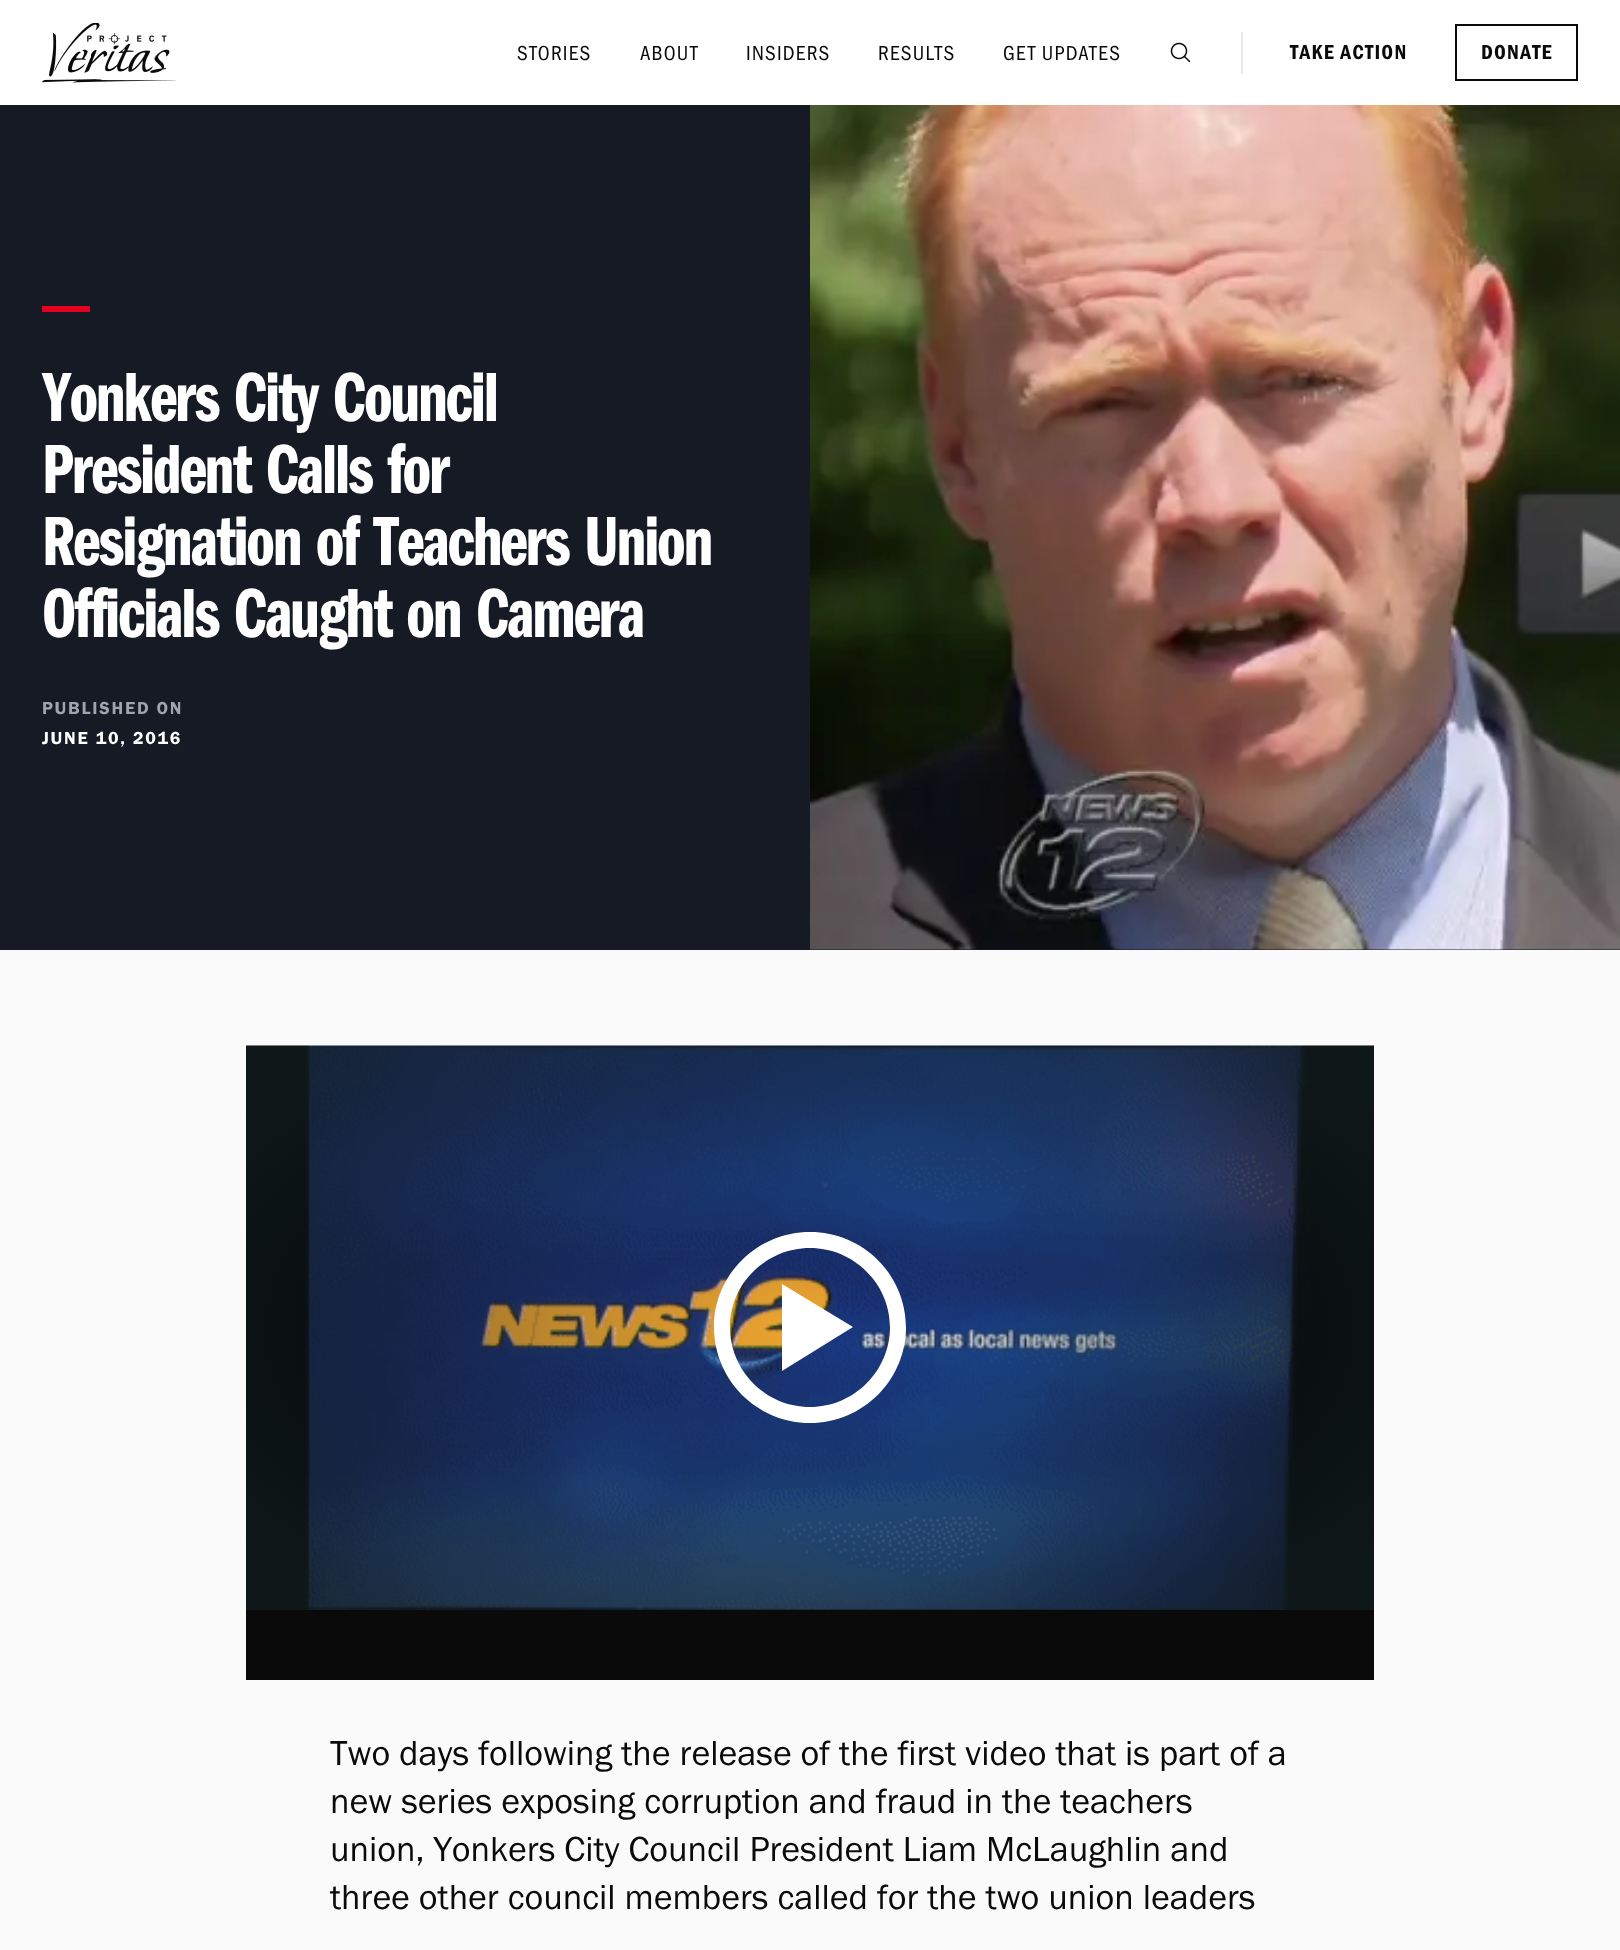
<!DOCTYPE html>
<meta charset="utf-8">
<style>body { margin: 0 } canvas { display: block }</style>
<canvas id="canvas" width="1620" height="1950"></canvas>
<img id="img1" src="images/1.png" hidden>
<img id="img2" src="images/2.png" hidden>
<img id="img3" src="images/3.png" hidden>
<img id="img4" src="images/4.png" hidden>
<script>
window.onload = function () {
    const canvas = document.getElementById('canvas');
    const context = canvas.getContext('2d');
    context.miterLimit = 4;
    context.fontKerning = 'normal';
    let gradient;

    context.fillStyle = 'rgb(250, 250, 250)';
    context.fillRect(0, 0, 1620, 1950);
    context.fillStyle = 'rgb(255, 255, 255)';
    context.fillRect(0, 0, 1620, 105);
    context.drawImage(document.getElementById('img1'), 42, 23, 135, 60);
    context.drawImage(document.getElementById('img2'), 1170, 42, 21, 21);
    context.fillStyle = 'rgb(230, 233, 236)';
    context.fillRect(1241, 32, 2, 42);
    context.strokeStyle = 'rgb(10, 10, 10)';
    context.lineWidth = 2;
    context.strokeRect(1456, 25, 121, 55);
    context.fillStyle = 'rgb(21, 26, 36)';
    context.fillRect(0, 105, 1620, 845);
    context.fillStyle = 'rgb(229, 0, 31)';
    context.fillRect(42, 306, 48, 6);
    context.drawImage(document.getElementById('img3'), 810, 105, 810, 845);
    context.fillStyle = 'rgb(10, 10, 10)';
    context.fillRect(246, 1609, 1128, 71);
    context.drawImage(document.getElementById('img4'), 246, 1045, 1128, 565);
    gradient = context.createRadialGradient(810, 2656, 0, 810, 2656, 716);
    gradient.addColorStop(0, 'rgba(22, 35, 37, 0)');
    gradient.addColorStop(1, 'rgba(22, 35, 37, 0.66)');
    context.fillStyle = gradient;
    context.beginPath();
    context.rect(246, 1046, 1128, 564);
    context.save();
    context.clip();
    context.scale(1, 358 / 716);
    context.fillRect(0, 0, 1620, 3900);
    context.restore();
    context.fillStyle = 'rgb(255, 255, 255)';
    context.beginPath();
    context.moveTo(730, 1327);
    context.bezierCurveTo(730, 1371, 766, 1407, 810, 1407);
    context.bezierCurveTo(854, 1407, 890, 1371, 890, 1327);
    context.bezierCurveTo(890, 1284, 854, 1248, 810, 1248);
    context.bezierCurveTo(766, 1248, 730, 1284, 730, 1327);
    context.closePath();
    context.moveTo(714, 1327);
    context.bezierCurveTo(714, 1275, 757, 1232, 810, 1232);
    context.bezierCurveTo(863, 1232, 906, 1275, 906, 1327);
    context.bezierCurveTo(906, 1380, 863, 1423, 810, 1423);
    context.bezierCurveTo(757, 1423, 714, 1380, 714, 1327);
    context.closePath();
    context.moveTo(853, 1327);
    context.lineTo(782, 1371);
    context.lineTo(782, 1284);
    context.closePath();
    context.fill('evenodd');
    context.letterSpacing = '1.25px';
    context.font = '21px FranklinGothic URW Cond';
    context.fillStyle = 'rgb(10, 10, 10)';
    context.fillText('STORIES', 517, 60);
    context.fillText('ABOUT', 640, 60);
    context.fillText('INSIDERS', 746, 60);
    context.fillText('RESULTS', 878, 60);
    context.fillText('GET UPDATES', 1003, 60);
    context.font = '21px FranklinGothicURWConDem';
    context.fillText('TAKE ACTION', 1290, 59);
    context.fillText('DONATE', 1481, 59);
    context.letterSpacing = '-1.8px';
    context.font = '600 72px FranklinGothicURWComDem';
    context.fillStyle = 'rgb(255, 255, 255)';
    context.fillText('Yonkers City Council', 42, 421);
    context.fillText('President Calls for', 42, 493);
    context.fillText('Resignation of Teachers Union', 42, 565);
    context.fillText('Officials Caught on Camera', 42, 637);
    context.letterSpacing = '1.75px';
    context.font = '18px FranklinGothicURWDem';
    context.fillStyle = 'rgb(157, 165, 175)';
    context.fillText('PUBLISHED ON', 42, 714);
    context.fillStyle = 'rgb(255, 255, 255)';
    context.fillText('JUNE 10, 2016', 42, 744);
    context.letterSpacing = '0px';
    context.font = '36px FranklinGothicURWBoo';
    context.fillStyle = 'rgb(10, 10, 10)';
    context.fillText('Two days following the release of the first video that is part of a', 330, 1765);
    context.fillText('new series exposing corruption and fraud in the teachers', 330, 1813);
    context.fillText('union, Yonkers City Council President Liam McLaughlin and', 330, 1861);
    context.fillText('three other council members called for the two union leaders', 330, 1909);
};
</script>
